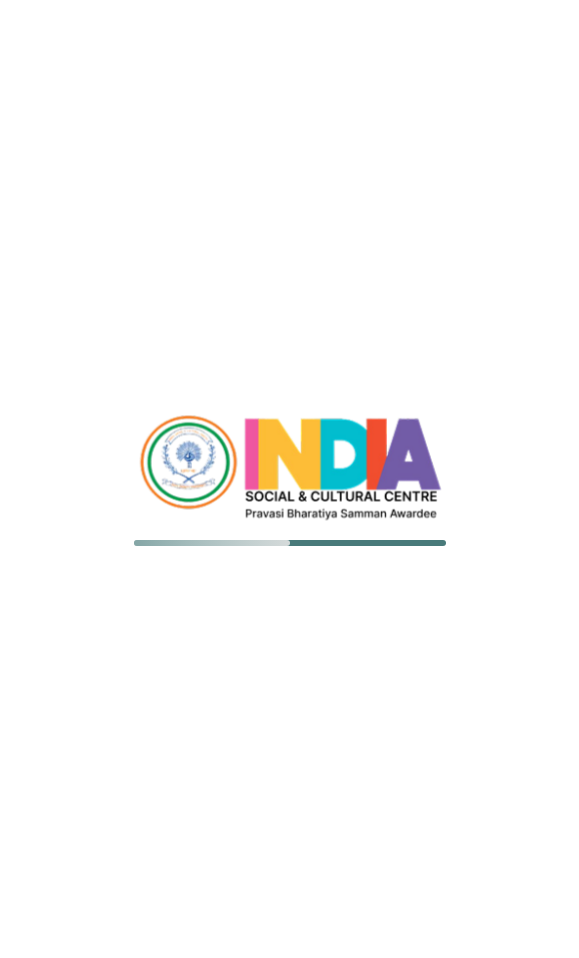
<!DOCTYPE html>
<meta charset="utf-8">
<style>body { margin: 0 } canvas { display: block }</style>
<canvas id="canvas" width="579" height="958"></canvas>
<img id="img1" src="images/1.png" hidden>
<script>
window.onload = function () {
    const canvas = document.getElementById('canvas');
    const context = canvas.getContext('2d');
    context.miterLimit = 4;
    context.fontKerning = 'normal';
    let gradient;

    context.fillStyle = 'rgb(255, 255, 255)';
    context.fillRect(0, 0, 579, 958);
    context.drawImage(document.getElementById('img1'), 139, 415, 303, 106);
    context.fillStyle = 'rgb(72, 122, 122)';
    context.beginPath();
    context.roundRect(134, 540, 312, 6, 3);
    context.fill();
    gradient = context.createLinearGradient(134, 543, 290, 543);
    gradient.addColorStop(0, 'rgba(255, 255, 255, 0.33)');
    gradient.addColorStop(1, 'rgba(230, 230, 230, 0.89)');
    context.fillStyle = gradient;
    context.beginPath();
    context.roundRect(134, 540, 156, 6, 3);
    context.fill();
};
</script>
